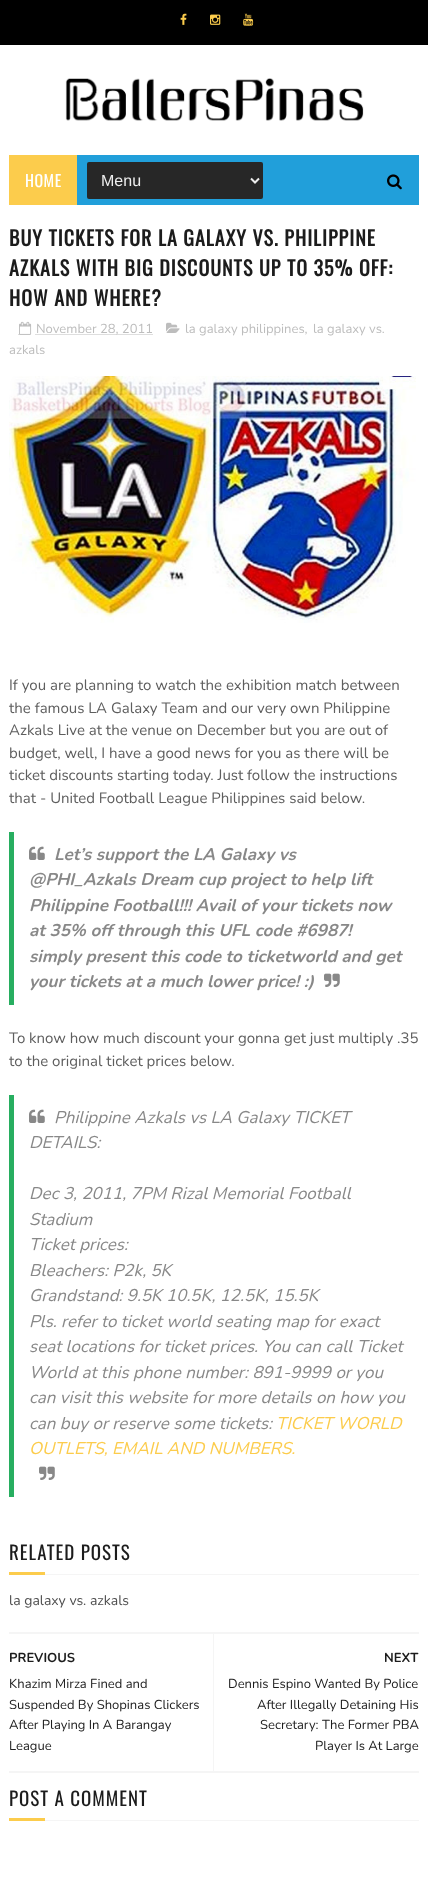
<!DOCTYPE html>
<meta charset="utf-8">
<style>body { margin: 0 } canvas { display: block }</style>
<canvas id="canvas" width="428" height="1904"></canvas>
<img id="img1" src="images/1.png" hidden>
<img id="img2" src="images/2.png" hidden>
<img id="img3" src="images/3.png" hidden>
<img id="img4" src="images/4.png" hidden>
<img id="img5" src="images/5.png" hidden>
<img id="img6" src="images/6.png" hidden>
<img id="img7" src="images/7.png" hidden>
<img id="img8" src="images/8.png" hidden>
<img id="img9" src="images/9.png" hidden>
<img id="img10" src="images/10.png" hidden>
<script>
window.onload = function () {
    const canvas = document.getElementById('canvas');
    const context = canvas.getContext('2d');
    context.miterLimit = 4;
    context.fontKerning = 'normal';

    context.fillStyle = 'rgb(255, 255, 255)';
    context.fillRect(0, 0, 428, 1904);
    context.fillStyle = 'rgb(0, 0, 0)';
    context.fillRect(0, 0, 428, 45);
    context.drawImage(document.getElementById('img1'), 180, 13, 7, 12);
    context.drawImage(document.getElementById('img2'), 210, 14, 11, 11);
    context.drawImage(document.getElementById('img3'), 243, 13, 11, 13);
    context.drawImage(document.getElementById('img4'), 65, 78, 299, 43);
    context.fillStyle = 'rgb(33, 159, 218)';
    context.fillRect(77, 155, 342, 50);
    context.fillStyle = 'rgb(252, 204, 76)';
    context.fillRect(9, 155, 68, 50);
    context.fillStyle = 'rgb(39, 39, 39)';
    context.beginPath();
    context.roundRect(87, 162, 176, 37, 2);
    context.fill();
    context.beginPath();
    context.moveTo(251, 178.5);
    context.lineTo(255, 182.5);
    context.lineTo(259, 178.5);
    context.strokeStyle = 'rgb(238, 238, 238)';
    context.lineWidth = 2;
    context.stroke();
    context.drawImage(document.getElementById('img5'), 387, 174, 15, 16);
    context.beginPath();
    context.moveTo(18.5, 334.5);
    context.lineTo(30.5, 334.5);
    context.strokeStyle = 'rgb(189, 189, 189)';
    context.lineWidth = 1;
    context.setLineDash([1, 1]);
    context.stroke();
    context.drawImage(document.getElementById('img6'), 19, 321, 13, 14);
    context.beginPath();
    context.moveTo(35.5, 334.5);
    context.lineTo(152.5, 334.5);
    context.stroke();
    context.drawImage(document.getElementById('img7'), 166, 322, 14, 11);
    context.drawImage(document.getElementById('img8'), 9, 376, 407, 247);
    context.fillStyle = 'rgb(39, 174, 96)';
    context.fillRect(9, 832, 5, 173);
    context.drawImage(document.getElementById('img9'), 29, 846, 16, 14);
    context.drawImage(document.getElementById('img10'), 324, 973, 16, 14);
    context.fillRect(9, 1095, 5, 402);
    context.drawImage(document.getElementById('img9'), 29, 1109, 16, 14);
    context.drawImage(document.getElementById('img10'), 39, 1466, 16, 14);
    context.fillStyle = 'rgb(245, 245, 245)';
    context.fillRect(45, 1574, 374, 1);
    context.fillStyle = 'rgb(252, 204, 76)';
    context.fillRect(9, 1572, 36, 3);
    context.fillStyle = 'rgb(245, 245, 245)';
    context.fillRect(9, 1632, 410, 2);
    context.fillRect(9, 1771, 410, 2);
    context.fillRect(213, 1634, 1, 137);
    context.fillRect(45, 1820, 374, 1);
    context.fillStyle = 'rgb(252, 204, 76)';
    context.fillRect(9, 1818, 36, 3);
    context.letterSpacing = '0.5px';
    context.font = '16px Oswald';
    context.fillStyle = 'rgb(255, 255, 255)';
    context.fillText('HOME', 25, 187);
    context.letterSpacing = '0px';
    context.font = '16px Liberation Sans';
    context.fillStyle = 'rgb(238, 238, 238)';
    context.fillText('Menu', 101, 186);
    context.letterSpacing = '1px';
    context.font = 'bold 20px Oswald';
    context.fillStyle = 'rgb(28, 28, 28)';
    context.fillText('BUY TICKETS FOR LA GALAXY VS. PHILIPPINE', 9, 246);
    context.fillText('AZKALS WITH BIG DISCOUNTS UP TO 35% OFF:', 9, 276);
    context.fillText('HOW AND WHERE?', 9, 306);
    context.letterSpacing = '0px';
    context.font = '13px Nunito';
    context.fillStyle = 'rgb(189, 189, 189)';
    context.fillText('November 28, 2011', 36, 333);
    context.fillText('la galaxy philippines,', 185, 333);
    context.fillText('la galaxy vs.', 313, 333);
    context.fillText('azkals', 9, 354);
    context.font = '15px Nunito';
    context.fillStyle = 'rgb(94, 94, 94)';
    context.fillText('If you are planning to watch the exhibition match between', 9, 690);
    context.fillText('the famous LA Galaxy Team and our very own Philippine', 9, 713);
    context.fillText('Azkals Live at the venue on December but you are out of', 9, 735);
    context.fillText('budget, well, I have a good news for you as there will be', 9, 758);
    context.fillText('ticket discounts starting today. Just follow the instructions', 9, 780);
    context.fillText('that - United Football League Philippines said below.', 9, 803);
    context.font = 'italic bold 17px Nunito';
    context.fillStyle = 'rgb(136, 136, 136)';
    context.fillText('Let’s support the LA Galaxy vs', 54, 860);
    context.fillText('@PHI_Azkals Dream cup project to help lift', 29, 885);
    context.fillText('Philippine Football!!! Avail of your tickets now', 29, 911);
    context.fillText('at 35% off through this UFL code #6987!', 29, 936);
    context.fillText('simply present this code to ticketworld and get', 29, 962);
    context.fillText('your tickets at a much lower price! :)', 29, 987);
    context.font = '15px Nunito';
    context.fillStyle = 'rgb(94, 94, 94)';
    context.fillText('To know how much discount your gonna get just multiply .35', 9, 1043);
    context.fillText('to the original ticket prices below.', 9, 1066);
    context.font = 'italic 17px Nunito';
    context.fillStyle = 'rgb(136, 136, 136)';
    context.fillText('Philippine Azkals vs LA Galaxy TICKET', 54, 1123);
    context.fillText('DETAILS:', 29, 1148);
    context.fillText('Dec 3, 2011, 7PM Rizal Memorial Football', 29, 1199);
    context.fillText('Stadium', 29, 1225);
    context.fillText('Ticket prices:', 29, 1250);
    context.fillText('Bleachers: P2k, 5K', 29, 1276);
    context.fillText('Grandstand: 9.5K 10.5K, 12.5K, 15.5K', 29, 1301);
    context.fillText('Pls. refer to ticket world seating map for exact', 29, 1327);
    context.fillText('seat locations for ticket prices. You can call Ticket', 29, 1352);
    context.fillText('World at this phone number: 891-9999 or you', 29, 1378);
    context.fillText('can visit this website for more details on how you', 29, 1403);
    context.fillText('can buy or reserve some tickets:', 29, 1429);
    context.fillStyle = 'rgb(252, 204, 76)';
    context.fillText('TICKET WORLD', 276, 1429);
    context.fillText('OUTLETS, EMAIL AND NUMBERS.', 29, 1454);
    context.letterSpacing = '1px';
    context.font = '19px Oswald';
    context.fillStyle = 'rgb(28, 28, 28)';
    context.fillText('RELATED POSTS', 9, 1560);
    context.letterSpacing = '0px';
    context.font = '14px Nunito';
    context.fillStyle = 'rgb(79, 79, 79)';
    context.fillText('la galaxy vs. azkals', 9, 1605);
    context.font = 'bold 13px Nunito';
    context.fillStyle = 'rgb(28, 28, 28)';
    context.fillText('PREVIOUS', 9, 1662);
    context.font = '13px Nunito';
    context.fillText('Khazim Mirza Fined and', 9, 1688);
    context.fillText('Suspended By Shopinas Clickers', 9, 1709);
    context.fillText('After Playing In A Barangay', 9, 1729);
    context.fillText('League', 9, 1750);
    context.font = 'bold 13px Nunito';
    context.fillText('NEXT', 384, 1662);
    context.font = '13px Nunito';
    context.fillText('Dennis Espino Wanted By Police', 228, 1688);
    context.fillText('After Illegally Detaining His', 257, 1709);
    context.fillText('Secretary: The Former PBA', 260, 1729);
    context.fillText('Player Is At Large', 315, 1750);
    context.letterSpacing = '1px';
    context.font = '19px Oswald';
    context.fillText('POST A COMMENT', 9, 1806);
};
</script>
